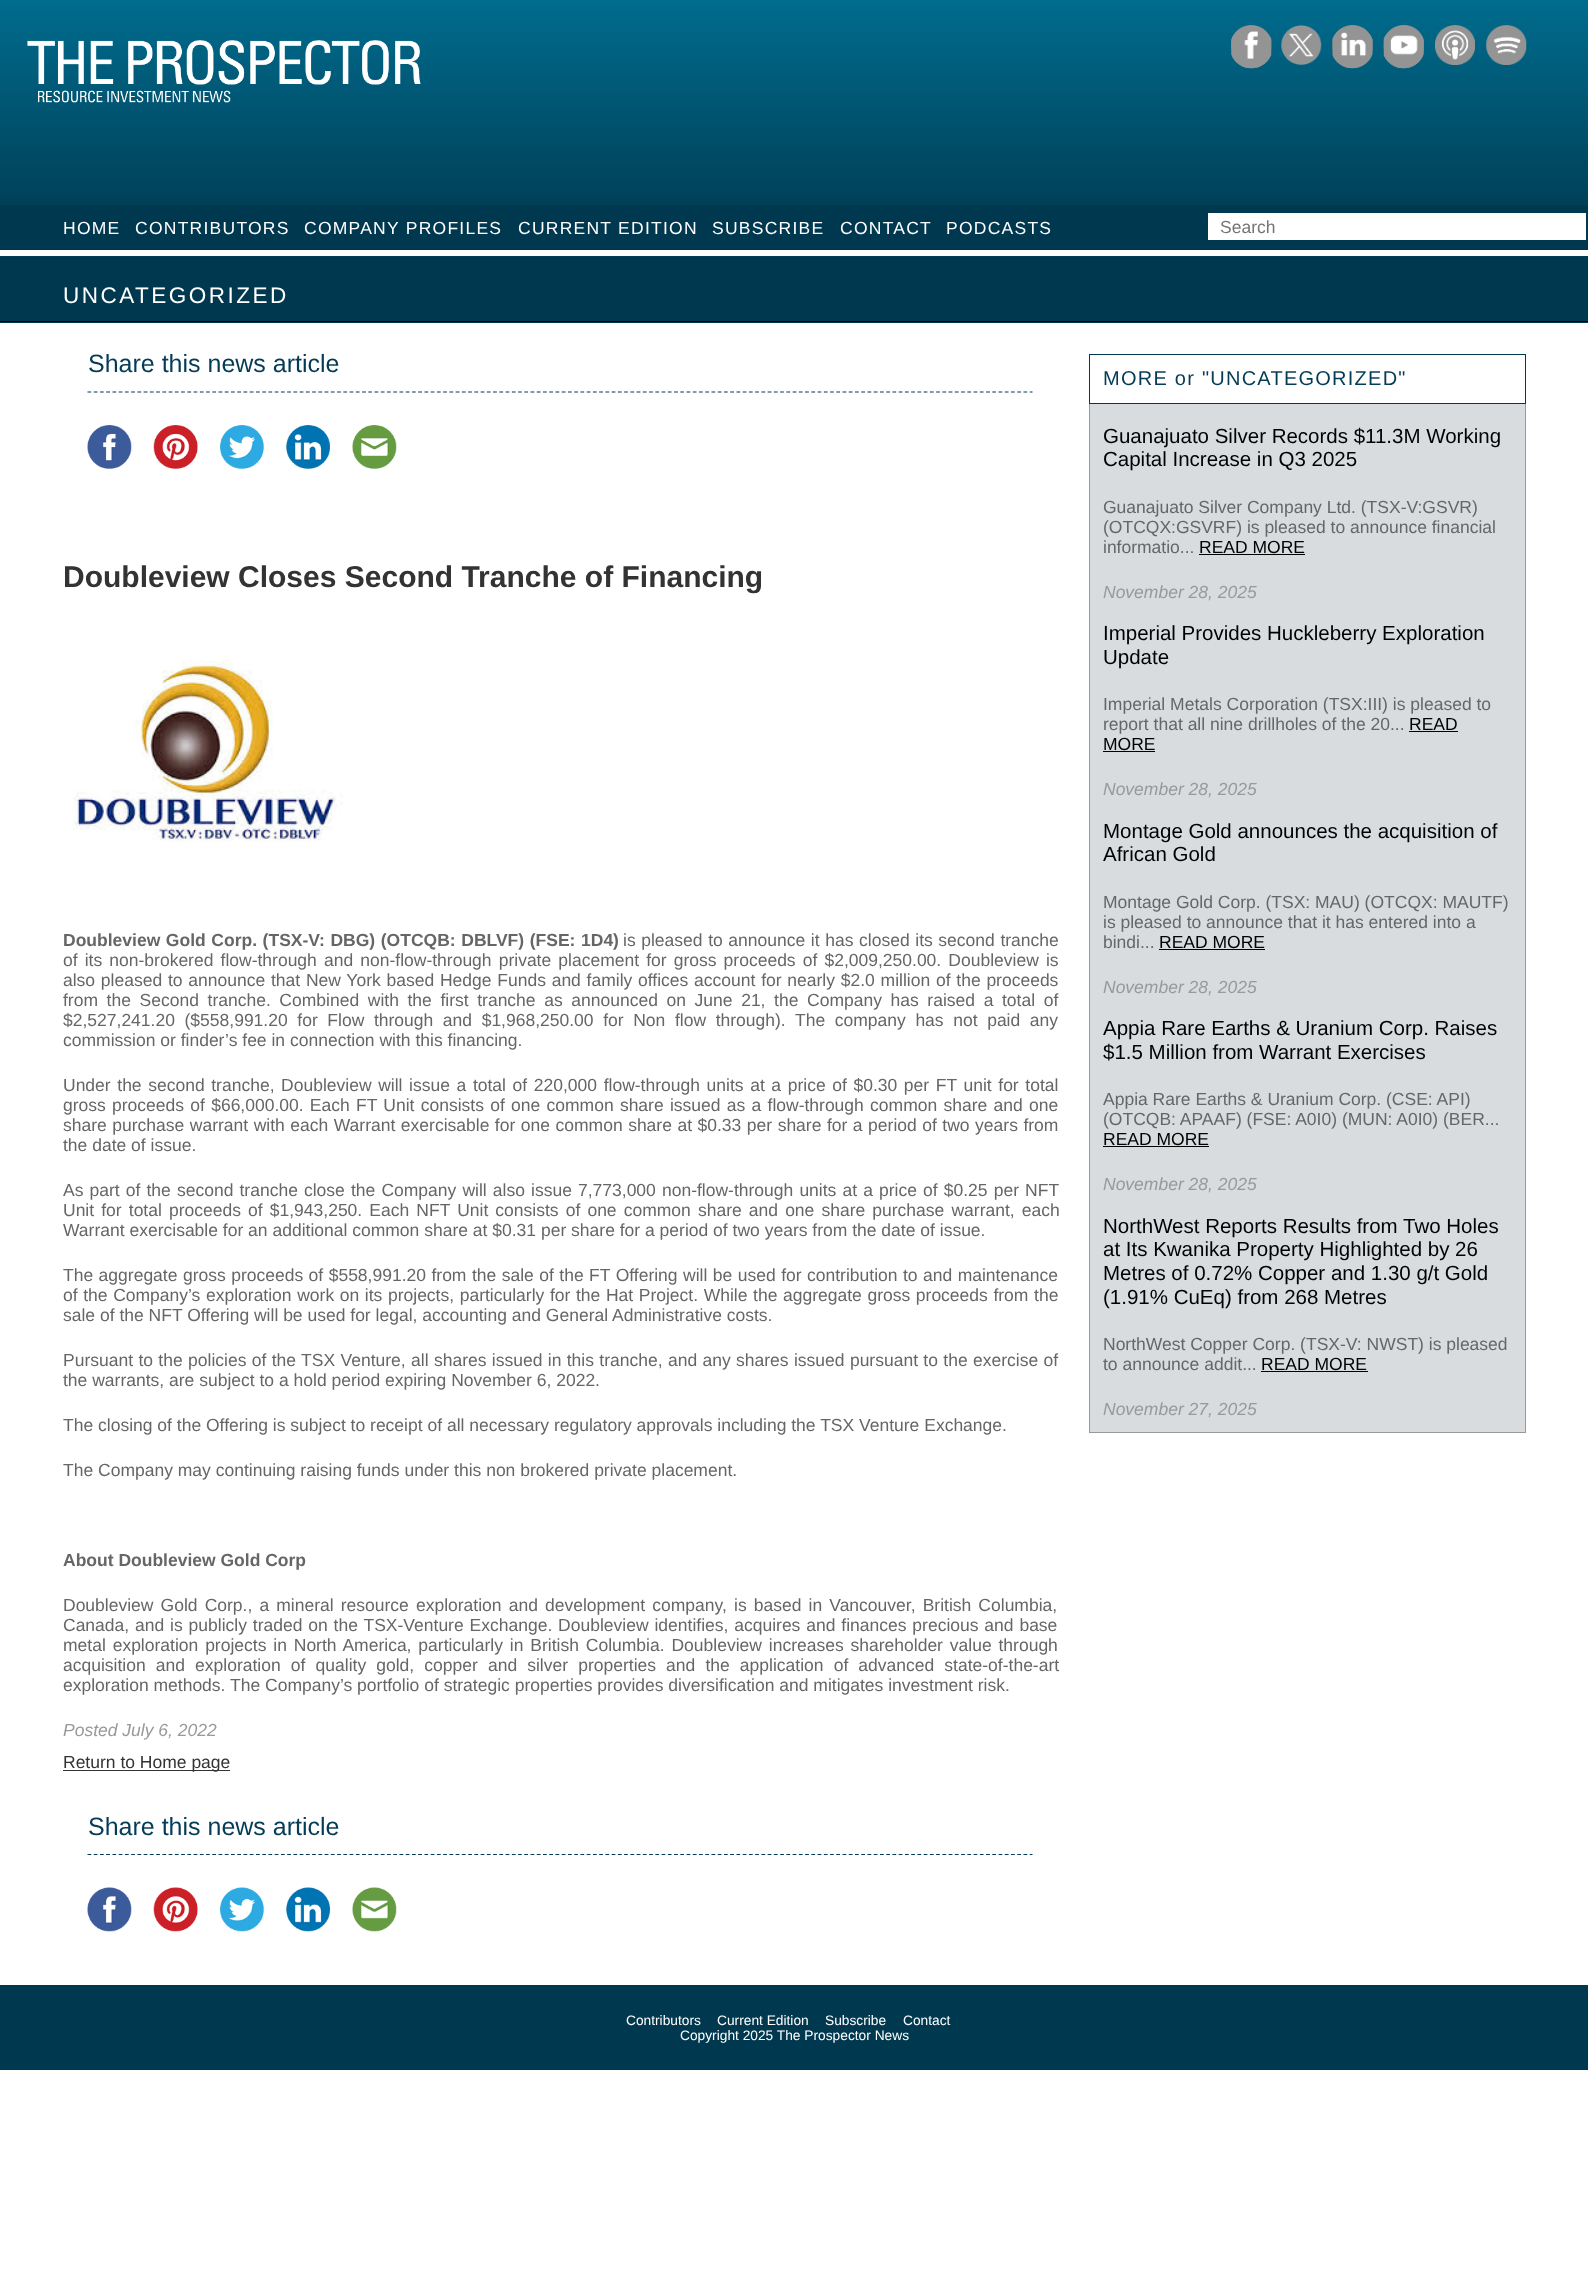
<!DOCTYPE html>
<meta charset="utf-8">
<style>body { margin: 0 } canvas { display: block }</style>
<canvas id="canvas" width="1588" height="2285"></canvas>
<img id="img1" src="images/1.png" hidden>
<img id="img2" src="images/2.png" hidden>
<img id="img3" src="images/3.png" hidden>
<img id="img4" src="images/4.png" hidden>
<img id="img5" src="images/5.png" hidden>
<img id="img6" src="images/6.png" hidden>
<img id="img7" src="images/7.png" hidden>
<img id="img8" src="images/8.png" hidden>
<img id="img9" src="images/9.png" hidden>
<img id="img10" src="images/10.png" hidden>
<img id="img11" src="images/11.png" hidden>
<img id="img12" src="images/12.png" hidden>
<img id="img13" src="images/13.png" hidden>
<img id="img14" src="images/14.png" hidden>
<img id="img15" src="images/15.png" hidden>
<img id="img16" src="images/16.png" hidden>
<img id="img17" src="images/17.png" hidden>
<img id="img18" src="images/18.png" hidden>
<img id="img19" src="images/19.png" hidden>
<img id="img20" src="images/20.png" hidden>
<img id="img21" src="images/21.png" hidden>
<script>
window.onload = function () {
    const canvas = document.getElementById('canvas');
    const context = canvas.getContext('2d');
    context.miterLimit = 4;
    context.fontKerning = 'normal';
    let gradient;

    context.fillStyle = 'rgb(255, 255, 255)';
    context.fillRect(0, 0, 1588, 2285);
    gradient = context.createLinearGradient(794, 0, 794, 250);
    gradient.addColorStop(0, 'rgb(0, 108, 142)');
    gradient.addColorStop(1, 'rgb(0, 55, 77)');
    context.fillStyle = gradient;
    context.fillRect(0, 0, 1588, 205);
    context.drawImage(document.getElementById('img1'), 27, 40, 394, 63);
    context.drawImage(document.getElementById('img2'), 1231, 25, 41, 44);
    context.drawImage(document.getElementById('img3'), 1231, 25, 41, 36);
    context.drawImage(document.getElementById('img4'), 1281, 25, 41, 40);
    context.drawImage(document.getElementById('img5'), 1332, 25, 41, 44);
    context.drawImage(document.getElementById('img6'), 1332, 25, 41, 32);
    context.drawImage(document.getElementById('img7'), 1383, 25, 41, 44);
    context.drawImage(document.getElementById('img8'), 1383, 25, 41, 31);
    context.drawImage(document.getElementById('img9'), 1435, 25, 40, 40);
    context.drawImage(document.getElementById('img10'), 1486, 25, 41, 40);
    context.fillStyle = 'rgb(0, 56, 79)';
    context.fillRect(0, 205, 1588, 45);
    context.fillStyle = 'rgb(255, 255, 255)';
    context.fillRect(1208, 213, 378, 27);
    context.fillStyle = 'rgb(0, 56, 79)';
    context.fillRect(0, 257, 1588, 66);
    context.fillStyle = 'rgb(4, 59, 85)';
    context.fillRect(0, 256, 1588, 1);
    context.fillStyle = 'rgb(0, 0, 0)';
    context.fillRect(0, 321, 1588, 1);
    context.beginPath();
    context.moveTo(87.5, 392);
    context.lineTo(1032.5, 392);
    context.strokeStyle = 'rgb(4, 59, 85)';
    context.lineWidth = 1.2;
    context.setLineDash([3.75, 2.49]);
    context.stroke();
    context.drawImage(document.getElementById('img11'), 87, 425, 45, 44);
    context.drawImage(document.getElementById('img12'), 153, 425, 45, 44);
    context.drawImage(document.getElementById('img13'), 220, 425, 44, 44);
    context.drawImage(document.getElementById('img14'), 286, 425, 44, 44);
    context.drawImage(document.getElementById('img15'), 352, 425, 45, 44);
    context.drawImage(document.getElementById('img16'), 72, 660, 271, 182);
    context.fillStyle = 'rgb(51, 51, 51)';
    context.fillRect(63, 1770, 167, 1);
    context.beginPath();
    context.moveTo(87.5, 1854.5);
    context.lineTo(1032.5, 1854.5);
    context.stroke();
    context.drawImage(document.getElementById('img17'), 87, 1887, 45, 45);
    context.drawImage(document.getElementById('img18'), 153, 1887, 45, 45);
    context.drawImage(document.getElementById('img19'), 220, 1887, 44, 45);
    context.drawImage(document.getElementById('img20'), 286, 1887, 44, 45);
    context.drawImage(document.getElementById('img21'), 352, 1887, 45, 45);
    context.fillStyle = 'rgb(216, 220, 223)';
    context.fillRect(1090, 404, 435, 1028);
    context.strokeStyle = 'rgb(153, 153, 153)';
    context.lineWidth = 1;
    context.setLineDash([]);
    context.strokeRect(1089.5, 354.5, 436, 1078);
    context.strokeStyle = 'rgb(0, 56, 79)';
    context.strokeRect(1089.5, 354.5, 436, 49);
    context.fillStyle = 'rgb(0, 0, 0)';
    context.fillRect(1199, 554, 106, 1);
    context.fillRect(1409, 731, 49, 1);
    context.fillRect(1103, 751, 52, 1);
    context.fillRect(1159, 949, 106, 1);
    context.fillRect(1103, 1146, 106, 1);
    context.fillRect(1261, 1371, 107, 1);
    context.fillStyle = 'rgb(0, 56, 79)';
    context.fillRect(0, 1985, 1588, 85);
    context.letterSpacing = '1.25px';
    context.font = '17.5px Liberation Sans';
    context.fillStyle = 'rgb(255, 255, 255)';
    context.fillText('HOME', 63, 234);
    context.fillText('CONTRIBUTORS', 135, 234);
    context.fillText('COMPANY PROFILES', 304, 234);
    context.fillText('CURRENT EDITION', 518, 234);
    context.fillText('SUBSCRIBE', 712, 234);
    context.fillText('CONTACT', 840, 234);
    context.fillText('PODCASTS', 946, 234);
    context.letterSpacing = '0px';
    context.fillStyle = 'rgb(117, 117, 117)';
    context.fillText('Search', 1220, 233);
    context.letterSpacing = '2.5px';
    context.font = '22.5px Liberation Sans';
    context.fillStyle = 'rgb(255, 255, 255)';
    context.fillText('UNCATEGORIZED', 63, 303);
    context.letterSpacing = '0px';
    context.font = '25px Liberation Sans';
    context.fillStyle = 'rgb(4, 59, 85)';
    context.fillText('Share this news article', 88, 372);
    context.font = 'bold 30px Liberation Sans';
    context.fillStyle = 'rgb(51, 51, 51)';
    context.fillText('Doubleview Closes Second Tranche of Financing', 63, 587);
    context.wordSpacing = '0.75px';
    context.font = 'bold 17.5px Liberation Sans';
    context.fillStyle = 'rgb(102, 102, 102)';
    context.fillText('Doubleview Gold Corp. (TSX-V: DBG) (OTCQB: DBLVF) (FSE: 1D4)', 63, 946);
    context.font = '17.5px Liberation Sans';
    context.fillText('is pleased to announce it has closed its second tranche', 623, 946);
    context.wordSpacing = '2.25px';
    context.fillText('of its non-brokered flow-through and non-flow-through private placement for gross proceeds of $2,009,250.00. Doubleview is', 63, 966);
    context.wordSpacing = '0.9px';
    context.fillText('also pleased to announce that New York based Hedge Funds and family offices account for nearly $2.0 million of the proceeds', 63, 986);
    context.wordSpacing = '3.75px';
    context.fillText('from the Second tranche. Combined with the first tranche as announced on June 21, the Company has raised a total of', 63, 1006);
    context.wordSpacing = '4.75px';
    context.fillText('$2,527,241.20 ($558,991.20 for Flow through and $1,968,250.00 for Non flow through). The company has not paid any', 63, 1026);
    context.wordSpacing = '0px';
    context.fillText('commission or finder’s fee in connection with this financing.', 63, 1046);
    context.wordSpacing = '1.75px';
    context.fillText('Under the second tranche, Doubleview will issue a total of 220,000 flow-through units at a price of $0.30 per FT unit for total', 63, 1091);
    context.wordSpacing = '1.4px';
    context.fillText('gross proceeds of $66,000.00. Each FT Unit consists of one common share issued as a flow-through common share and one', 63, 1111);
    context.wordSpacing = '0.65px';
    context.fillText('share purchase warrant with each Warrant exercisable for one common share at $0.33 per share for a period of two years from', 63, 1131);
    context.wordSpacing = '0px';
    context.fillText('the date of issue.', 63, 1151);
    context.wordSpacing = '1.25px';
    context.fillText('As part of the second tranche close the Company will also issue 7,773,000 non-flow-through units at a price of $0.25 per NFT', 63, 1196);
    context.wordSpacing = '2.25px';
    context.fillText('Unit for total proceeds of $1,943,250. Each NFT Unit consists of one common share and one share purchase warrant, each', 63, 1216);
    context.wordSpacing = '0px';
    context.fillText('Warrant exercisable for an additional common share at $0.31 per share for a period of two years from the date of issue.', 63, 1236);
    context.wordSpacing = '0.6px';
    context.fillText('The aggregate gross proceeds of $558,991.20 from the sale of the FT Offering will be used for contribution to and maintenance', 63, 1281);
    context.wordSpacing = '0.75px';
    context.fillText('of the Company’s exploration work on its projects, particularly for the Hat Project. While the aggregate gross proceeds from the', 63, 1301);
    context.wordSpacing = '0px';
    context.fillText('sale of the NFT Offering will be used for legal, accounting and General Administrative costs.', 63, 1321);
    context.wordSpacing = '0.5px';
    context.fillText('Pursuant to the policies of the TSX Venture, all shares issued in this tranche, and any shares issued pursuant to the exercise of', 63, 1366);
    context.wordSpacing = '0px';
    context.fillText('the warrants, are subject to a hold period expiring November 6, 2022.', 63, 1386);
    context.fillText('The closing of the Offering is subject to receipt of all necessary regulatory approvals including the TSX Venture Exchange.', 63, 1431);
    context.fillText('The Company may continuing raising funds under this non brokered private placement.', 63, 1476);
    context.font = 'bold 17.5px Liberation Sans';
    context.fillText('About Doubleview Gold Corp', 63, 1566);
    context.wordSpacing = '2.25px';
    context.font = '17.5px Liberation Sans';
    context.fillText('Doubleview Gold Corp., a mineral resource exploration and development company, is based in Vancouver, British Columbia,', 63, 1611);
    context.wordSpacing = '1px';
    context.fillText('Canada, and is publicly traded on the TSX-Venture Exchange. Doubleview identifies, acquires and finances precious and base', 63, 1631);
    context.wordSpacing = '2px';
    context.fillText('metal exploration projects in North America, particularly in British Columbia. Doubleview increases shareholder value through', 63, 1651);
    context.wordSpacing = '5.25px';
    context.fillText('acquisition and exploration of quality gold, copper and silver properties and the application of advanced state-of-the-art', 63, 1671);
    context.wordSpacing = '0px';
    context.fillText('exploration methods. The Company’s portfolio of strategic properties provides diversification and mitigates investment risk.', 63, 1691);
    context.font = 'italic 17.5px Liberation Sans';
    context.fillStyle = 'rgb(153, 153, 153)';
    context.fillText('Posted July 6, 2022', 63, 1736);
    context.font = '17.5px Liberation Sans';
    context.fillStyle = 'rgb(51, 51, 51)';
    context.fillText('Return to Home page', 63, 1768);
    context.font = '25px Liberation Sans';
    context.fillStyle = 'rgb(4, 59, 85)';
    context.fillText('Share this news article', 88, 1835);
    context.letterSpacing = '1.25px';
    context.font = '20px Liberation Sans';
    context.fillText('MORE or "UNCATEGORIZED"', 1103, 385);
    context.letterSpacing = '0px';
    context.font = '20.5px Liberation Sans';
    context.fillStyle = 'rgb(0, 0, 0)';
    context.fillText('Guanajuato Silver Records $11.3M Working', 1103, 443);
    context.fillText('Capital Increase in Q3 2025', 1103, 466);
    context.font = '17.5px Liberation Sans';
    context.fillStyle = 'rgb(102, 102, 102)';
    context.fillText('Guanajuato Silver Company Ltd. (TSX-V:GSVR)', 1103, 513);
    context.fillText('(OTCQX:GSVRF) is pleased to announce financial', 1103, 533);
    context.fillText('informatio...', 1103, 553);
    context.fillStyle = 'rgb(0, 0, 0)';
    context.fillText('READ MORE', 1199, 553);
    context.font = 'italic 17.5px Liberation Sans';
    context.fillStyle = 'rgb(153, 153, 153)';
    context.fillText('November 28, 2025', 1103, 598);
    context.font = '20.5px Liberation Sans';
    context.fillStyle = 'rgb(0, 0, 0)';
    context.fillText('Imperial Provides Huckleberry Exploration', 1103, 640);
    context.fillText('Update', 1103, 664);
    context.font = '17.5px Liberation Sans';
    context.fillStyle = 'rgb(102, 102, 102)';
    context.fillText('Imperial Metals Corporation (TSX:III) is pleased to', 1103, 710);
    context.fillText('report that all nine drillholes of the 20...', 1103, 730);
    context.fillStyle = 'rgb(0, 0, 0)';
    context.fillText('READ', 1409, 730);
    context.fillText('MORE', 1103, 750);
    context.font = 'italic 17.5px Liberation Sans';
    context.fillStyle = 'rgb(153, 153, 153)';
    context.fillText('November 28, 2025', 1103, 795);
    context.font = '20.5px Liberation Sans';
    context.fillStyle = 'rgb(0, 0, 0)';
    context.fillText('Montage Gold announces the acquisition of', 1103, 838);
    context.fillText('African Gold', 1103, 861);
    context.font = '17.5px Liberation Sans';
    context.fillStyle = 'rgb(102, 102, 102)';
    context.fillText('Montage Gold Corp. (TSX: MAU) (OTCQX: MAUTF)', 1103, 908);
    context.fillText('is pleased to announce that it has entered into a', 1103, 928);
    context.fillText('bindi...', 1103, 948);
    context.fillStyle = 'rgb(0, 0, 0)';
    context.fillText('READ MORE', 1159, 948);
    context.font = 'italic 17.5px Liberation Sans';
    context.fillStyle = 'rgb(153, 153, 153)';
    context.fillText('November 28, 2025', 1103, 993);
    context.font = '20.5px Liberation Sans';
    context.fillStyle = 'rgb(0, 0, 0)';
    context.fillText('Appia Rare Earths & Uranium Corp. Raises', 1103, 1035);
    context.fillText('$1.5 Million from Warrant Exercises', 1103, 1059);
    context.font = '17.5px Liberation Sans';
    context.fillStyle = 'rgb(102, 102, 102)';
    context.fillText('Appia Rare Earths & Uranium Corp. (CSE: API)', 1103, 1105);
    context.fillText('(OTCQB: APAAF) (FSE: A0I0) (MUN: A0I0) (BER...', 1103, 1125);
    context.fillStyle = 'rgb(0, 0, 0)';
    context.fillText('READ MORE', 1103, 1145);
    context.font = 'italic 17.5px Liberation Sans';
    context.fillStyle = 'rgb(153, 153, 153)';
    context.fillText('November 28, 2025', 1103, 1190);
    context.font = '20.5px Liberation Sans';
    context.fillStyle = 'rgb(0, 0, 0)';
    context.fillText('NorthWest Reports Results from Two Holes', 1103, 1233);
    context.fillText('at Its Kwanika Property Highlighted by 26', 1103, 1256);
    context.fillText('Metres of 0.72% Copper and 1.30 g/t Gold', 1103, 1280);
    context.fillText('(1.91% CuEq) from 268 Metres', 1103, 1304);
    context.font = '17.5px Liberation Sans';
    context.fillStyle = 'rgb(102, 102, 102)';
    context.fillText('NorthWest Copper Corp. (TSX-V: NWST) is pleased', 1103, 1350);
    context.fillText('to announce addit...', 1103, 1370);
    context.fillStyle = 'rgb(0, 0, 0)';
    context.fillText('READ MORE', 1261, 1370);
    context.font = 'italic 17.5px Liberation Sans';
    context.fillStyle = 'rgb(153, 153, 153)';
    context.fillText('November 27, 2025', 1103, 1415);
    context.font = '13.75px Liberation Sans';
    context.fillStyle = 'rgb(255, 255, 255)';
    context.fillText('Contributors', 626, 2025);
    context.fillText('Current Edition', 717, 2025);
    context.fillText('Subscribe', 825, 2025);
    context.fillText('Contact', 903, 2025);
    context.fillText('Copyright 2025 The Prospector News', 680, 2040);
};
</script>
